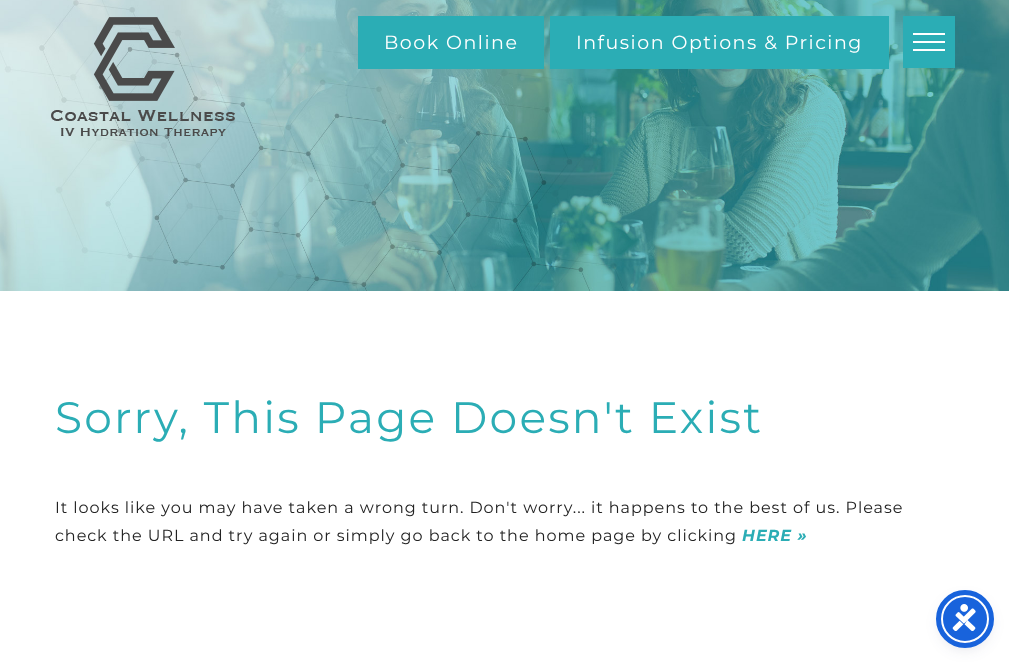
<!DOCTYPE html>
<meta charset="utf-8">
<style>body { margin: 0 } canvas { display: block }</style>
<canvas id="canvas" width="1009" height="663"></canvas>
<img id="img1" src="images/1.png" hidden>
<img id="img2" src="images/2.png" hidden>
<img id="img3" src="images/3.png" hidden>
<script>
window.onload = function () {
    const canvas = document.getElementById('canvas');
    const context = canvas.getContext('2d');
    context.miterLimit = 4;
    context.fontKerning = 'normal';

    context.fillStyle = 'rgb(255, 255, 255)';
    context.fillRect(0, 0, 1009, 663);
    context.drawImage(document.getElementById('img1'), 0, 0, 1009, 291);
    context.drawImage(document.getElementById('img2'), 51, 17, 184, 119);
    context.fillStyle = 'rgb(43, 173, 181)';
    context.fillRect(358, 16, 186, 53);
    context.fillRect(550, 16, 339, 53);
    context.fillRect(903, 16, 52, 52);
    context.fillStyle = 'rgb(255, 255, 255)';
    context.fillRect(913, 41, 32, 2);
    context.fillRect(913, 33, 32, 2);
    context.fillRect(913, 49, 32, 2);
    context.fillStyle = 'rgba(93, 100, 148, 0.2)';
    context.filter = 'blur(2px)';
    context.beginPath();
    context.roundRect(941, 597, 48, 48, 24);
    context.fill();
    context.filter = 'none';
    context.fillStyle = 'rgba(37, 44, 97, 0.15)';
    context.filter = 'blur(7.5px)';
    context.beginPath();
    context.roundRect(941, 600, 48, 48, 24);
    context.fill();
    context.filter = 'none';
    context.fillStyle = 'rgb(24, 99, 220)';
    context.beginPath();
    context.arc(965, 619, 23, 0, 2 * Math.PI);
    context.fill();
    context.strokeStyle = 'rgb(255, 255, 255)';
    context.lineWidth = 2;
    context.stroke();
    context.beginPath();
    context.arc(965, 619, 26.5, 0, 2 * Math.PI);
    context.strokeStyle = 'rgb(24, 99, 220)';
    context.lineWidth = 5;
    context.stroke();
    context.drawImage(document.getElementById('img3'), 952, 604, 24, 27);
    context.letterSpacing = '1.5px';
    context.font = '19px Montserrat';
    context.fillStyle = 'rgb(255, 255, 255)';
    context.fillText('Book Online', 384, 49);
    context.fillText('Infusion Options & Pricing', 576, 49);
    context.letterSpacing = '2.2px';
    context.font = '44px Montserrat';
    context.fillStyle = 'rgb(43, 173, 181)';
    context.fillText('Sorry, This Page Doesn\'t Exist', 55, 433);
    context.letterSpacing = '0.95px';
    context.font = '16px Montserrat';
    context.fillStyle = 'rgb(34, 34, 34)';
    context.fillText('It looks like you may have taken a wrong turn. Don\'t worry... it happens to the best of us. Please', 55, 513);
    context.fillText('check the URL and try again or simply go back to the home page by clicking', 55, 541);
    context.font = 'italic bold 16px Montserrat';
    context.fillStyle = 'rgb(43, 173, 181)';
    context.fillText('HERE »', 742, 541);
};
</script>
